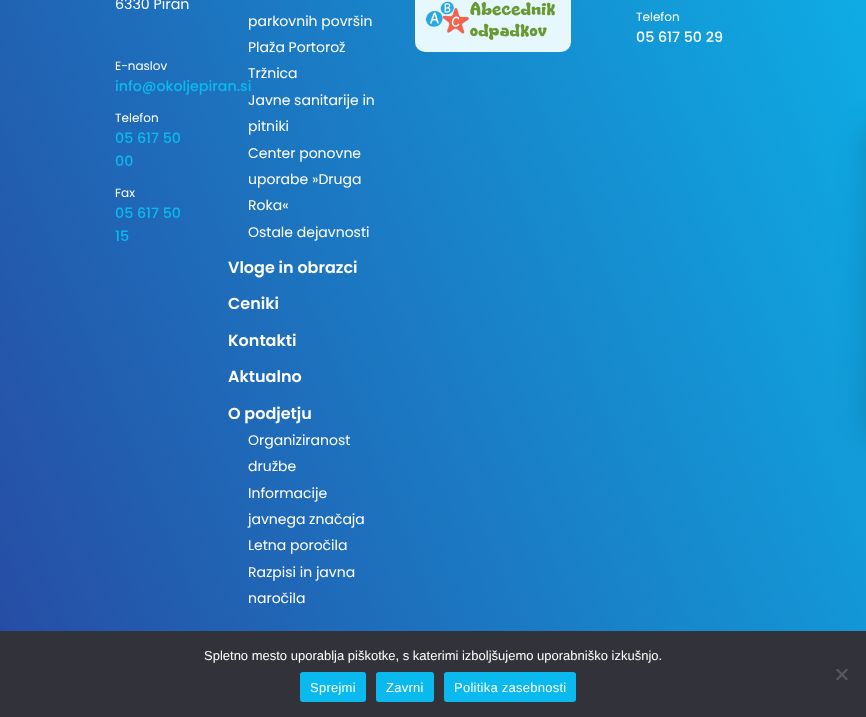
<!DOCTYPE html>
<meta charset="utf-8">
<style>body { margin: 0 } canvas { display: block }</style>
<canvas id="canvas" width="866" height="717"></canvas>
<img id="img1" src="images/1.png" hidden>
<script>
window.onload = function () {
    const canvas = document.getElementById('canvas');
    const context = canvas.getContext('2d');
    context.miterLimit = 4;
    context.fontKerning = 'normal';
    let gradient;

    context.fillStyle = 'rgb(255, 255, 255)';
    context.fillRect(0, 0, 866, 717);
    gradient = context.createLinearGradient(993, -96, -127, 356);
    gradient.addColorStop(0, 'rgb(10, 186, 238)');
    gradient.addColorStop(1, 'rgb(39, 76, 164)');
    context.fillStyle = gradient;
    context.fillRect(0, 0, 866, 631);
    context.fillStyle = 'rgb(230, 248, 254)';
    context.beginPath();
    context.roundRect(415, -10, 156, 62, 10);
    context.fill();
    context.drawImage(document.getElementById('img1'), 425, 1, 130, 39);
    context.fillStyle = 'rgba(0, 0, 0, 0.16)';
    context.filter = 'blur(15px)';
    context.beginPath();
    context.roundRect(866, 125, 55, 314, 10);
    context.fill();
    context.filter = 'none';
    context.fillStyle = 'rgb(50, 50, 58)';
    context.fillRect(0, 631, 866, 86);
    context.fillStyle = 'rgb(89, 89, 93)';
    context.beginPath();
    context.moveTo(846.5, 668.5);
    context.lineTo(848, 670);
    context.lineTo(837.5, 680.5);
    context.lineTo(836, 679);
    context.closePath();
    context.fill();
    context.beginPath();
    context.moveTo(836, 670);
    context.lineTo(837.5, 668.5);
    context.lineTo(848, 679);
    context.lineTo(846.5, 680.5);
    context.closePath();
    context.fill();
    context.fillStyle = 'rgb(10, 186, 238)';
    context.beginPath();
    context.roundRect(300, 672, 66, 30, 3);
    context.fill();
    context.beginPath();
    context.roundRect(376, 672, 58, 30, 3);
    context.fill();
    context.beginPath();
    context.roundRect(444, 672, 132, 30, 3);
    context.fill();
    context.font = '14.25px Poppins';
    context.fillStyle = 'rgb(255, 255, 255)';
    context.fillText('6330 Piran', 115, 9);
    context.font = '12px Poppins';
    context.fillText('E-naslov', 115, 70);
    context.font = '500 14.25px Poppins';
    context.fillStyle = 'rgb(10, 186, 238)';
    context.fillText('info@okoljepiran.si', 115, 91);
    context.font = '12px Poppins';
    context.fillStyle = 'rgb(255, 255, 255)';
    context.fillText('Telefon', 115, 122);
    context.font = '500 14.25px Poppins';
    context.fillStyle = 'rgb(10, 186, 238)';
    context.fillText('05 617 50', 115, 143);
    context.fillText('00', 115, 166);
    context.font = '12px Poppins';
    context.fillStyle = 'rgb(255, 255, 255)';
    context.fillText('Fax', 115, 197);
    context.font = '500 14.25px Poppins';
    context.fillStyle = 'rgb(10, 186, 238)';
    context.fillText('05 617 50', 115, 218);
    context.fillText('15', 115, 241);
    context.font = '14px Poppins';
    context.fillStyle = 'rgb(255, 255, 255)';
    context.fillText('parkovnih površin', 248, 26);
    context.fillText('Plaža Portorož', 248, 52);
    context.fillText('Tržnica', 248, 78);
    context.fillText('Javne sanitarije in', 248, 105);
    context.fillText('pitniki', 248, 131);
    context.fillText('Center ponovne', 248, 158);
    context.fillText('uporabe »Druga', 248, 184);
    context.fillText('Roka«', 248, 210);
    context.fillText('Ostale dejavnosti', 248, 237);
    context.font = '600 16px Poppins';
    context.fillText('Vloge in obrazci', 228, 273);
    context.fillText('Ceniki', 228, 309);
    context.fillText('Kontakti', 228, 346);
    context.fillText('Aktualno', 228, 382);
    context.fillText('O podjetju', 228, 419);
    context.font = '14px Poppins';
    context.fillText('Organiziranost', 248, 445);
    context.fillText('družbe', 248, 471);
    context.fillText('Informacije', 248, 498);
    context.fillText('javnega značaja', 248, 524);
    context.fillText('Letna poročila', 248, 550);
    context.fillText('Razpisi in javna', 248, 577);
    context.fillText('naročila', 248, 603);
    context.font = '12px Poppins';
    context.fillText('Telefon', 636, 21);
    context.font = '500 14.25px Poppins';
    context.fillText('05 617 50 29', 636, 42);
    context.font = '13px Liberation Sans';
    context.fillText('Spletno mesto uporablja piškotke, s katerimi izboljšujemo uporabniško izkušnjo.', 204, 660);
    context.letterSpacing = '0.25px';
    context.fillText('Sprejmi', 310, 692);
    context.fillText('Zavrni', 386, 692);
    context.fillText('Politika zasebnosti', 454, 692);
};
</script>
